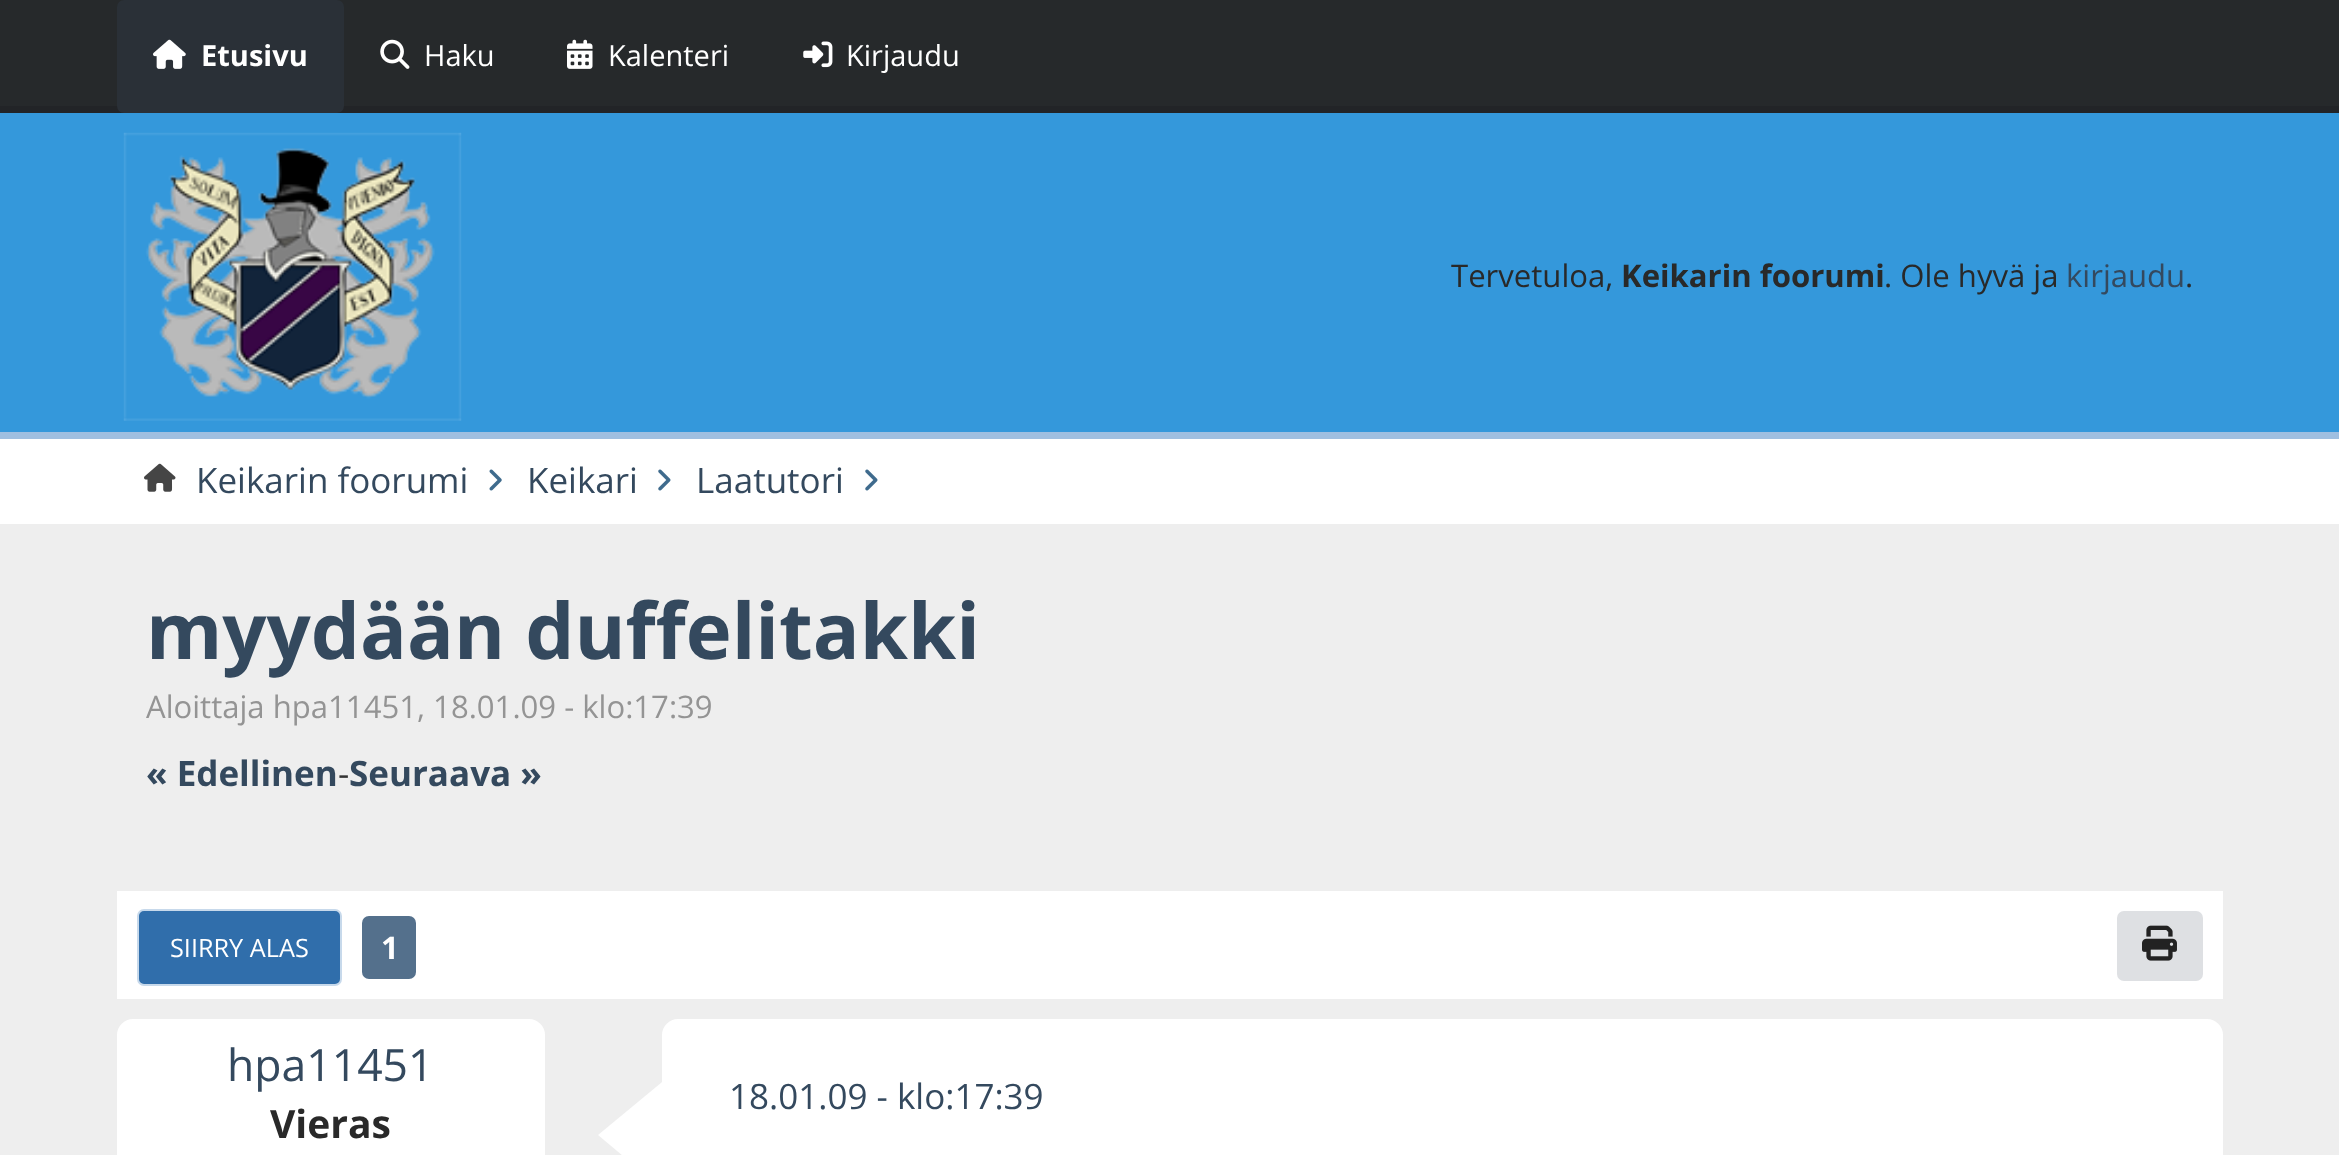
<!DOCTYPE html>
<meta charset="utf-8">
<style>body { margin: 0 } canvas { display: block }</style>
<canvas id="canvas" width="2339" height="1155"></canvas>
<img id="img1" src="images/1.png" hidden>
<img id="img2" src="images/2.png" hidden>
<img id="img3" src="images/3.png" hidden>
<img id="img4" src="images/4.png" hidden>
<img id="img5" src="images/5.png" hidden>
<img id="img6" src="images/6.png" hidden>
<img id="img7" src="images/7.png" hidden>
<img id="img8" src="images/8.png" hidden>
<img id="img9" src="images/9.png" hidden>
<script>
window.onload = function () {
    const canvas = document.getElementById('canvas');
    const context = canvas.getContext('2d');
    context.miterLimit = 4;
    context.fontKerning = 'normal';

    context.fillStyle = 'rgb(238, 238, 238)';
    context.fillRect(0, 0, 2339, 1155);
    context.fillStyle = 'rgb(38, 41, 43)';
    context.fillRect(0, 0, 2339, 106);
    context.fillStyle = 'rgb(34, 36, 39)';
    context.fillRect(0, 106, 2339, 7);
    context.fillStyle = 'rgb(42, 48, 55)';
    context.beginPath();
    context.roundRect(117, 0, 227, 113, 7);
    context.fill();
    context.drawImage(document.getElementById('img1'), 153, 39, 33, 30);
    context.drawImage(document.getElementById('img2'), 380, 39, 30, 30);
    context.drawImage(document.getElementById('img3'), 567, 39, 26, 30);
    context.drawImage(document.getElementById('img4'), 803, 41, 30, 27);
    context.fillStyle = 'rgb(52, 152, 219)';
    context.fillRect(0, 113, 2339, 319);
    context.fillStyle = 'rgb(159, 191, 224)';
    context.fillRect(0, 432, 2339, 7);
    context.drawImage(document.getElementById('img5'), 123, 132, 339, 289);
    context.fillStyle = 'rgb(255, 255, 255)';
    context.fillRect(0, 439, 2339, 85);
    context.drawImage(document.getElementById('img6'), 144, 463, 32, 29);
    context.drawImage(document.getElementById('img7'), 489, 469, 13, 22);
    context.drawImage(document.getElementById('img8'), 658, 469, 13, 22);
    context.drawImage(document.getElementById('img8'), 865, 469, 13, 22);
    context.fillRect(117, 891, 2106, 108);
    context.fillStyle = 'rgb(48, 110, 171)';
    context.beginPath();
    context.roundRect(138, 910, 203, 75, 6);
    context.fill();
    context.strokeStyle = 'rgb(199, 217, 235)';
    context.lineWidth = 2;
    context.stroke();
    context.fillStyle = 'rgb(84, 112, 140)';
    context.beginPath();
    context.roundRect(362, 916, 54, 63, 7);
    context.fill();
    context.fillStyle = 'rgb(222, 224, 227)';
    context.beginPath();
    context.roundRect(2117, 911, 86, 70, 7);
    context.fill();
    context.drawImage(document.getElementById('img9'), 2142, 925, 35, 36);
    context.fillStyle = 'rgb(255, 255, 255)';
    context.beginPath();
    context.roundRect(117, 1019, 428, 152, 16);
    context.fill();
    context.beginPath();
    context.roundRect(662, 1019, 1561, 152, 16);
    context.fill();
    context.beginPath();
    context.moveTo(679, 1068);
    context.lineTo(791, 1068);
    context.lineTo(711, 1135);
    context.lineTo(598, 1135);
    context.closePath();
    context.fill();
    context.beginPath();
    context.moveTo(598, 1135);
    context.lineTo(711, 1135);
    context.lineTo(791, 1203);
    context.lineTo(679, 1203);
    context.closePath();
    context.fill();
    context.font = 'bold 29px Open Sans';
    context.fillText('Etusivu', 201, 66);
    context.font = '29px Open Sans';
    context.fillText('Haku', 424, 66);
    context.fillText('Kalenteri', 608, 66);
    context.fillText('Kirjaudu', 846, 66);
    context.font = '31.1px Open Sans';
    context.fillStyle = 'rgb(41, 41, 41)';
    context.fillText('Tervetuloa,', 1451, 287);
    context.font = 'bold 31.1px Open Sans';
    context.fillText('Keikarin foorumi', 1621, 287);
    context.font = '31.1px Open Sans';
    context.fillText('. Ole hyvä ja', 1884, 287);
    context.fillStyle = 'rgb(52, 73, 94)';
    context.fillText('kirjaudu', 2066, 287);
    context.fillStyle = 'rgb(41, 41, 41)';
    context.fillText('.', 2185, 287);
    context.font = '35px Open Sans';
    context.fillStyle = 'rgb(52, 73, 94)';
    context.fillText('Keikarin foorumi', 196, 493);
    context.fillText('Keikari', 527, 493);
    context.fillText('Laatutori', 696, 493);
    context.font = 'bold 77.75px Open Sans';
    context.fillText('myydään duffelitakki', 146, 659);
    context.font = '31.1px Open Sans';
    context.fillStyle = 'rgb(148, 148, 148)';
    context.fillText('Aloittaja hpa11451, 18.01.09 - klo:17:39', 146, 718);
    context.font = 'bold 35px Open Sans';
    context.fillStyle = 'rgb(52, 73, 94)';
    context.fillText('« Edellinen', 146, 786);
    context.font = '35px Open Sans';
    context.fillStyle = 'rgb(51, 51, 51)';
    context.fillText('-', 338, 786);
    context.font = 'bold 35px Open Sans';
    context.fillStyle = 'rgb(52, 73, 94)';
    context.fillText('Seuraava »', 349, 786);
    context.font = '25.25px Open Sans';
    context.fillStyle = 'rgb(255, 255, 255)';
    context.fillText('SIIRRY ALAS', 170, 957);
    context.font = 'bold 31.1px Open Sans';
    context.fillText('1', 381, 959);
    context.font = '44.5px Open Sans';
    context.fillStyle = 'rgb(52, 73, 94)';
    context.fillText('hpa11451', 227, 1081);
    context.font = 'bold 39px Open Sans';
    context.fillStyle = 'rgb(41, 41, 41)';
    context.fillText('Vieras', 270, 1138);
    context.font = '35px Open Sans';
    context.fillStyle = 'rgb(52, 73, 94)';
    context.fillText('18.01.09 - klo:17:39', 729, 1109);
};
</script>
